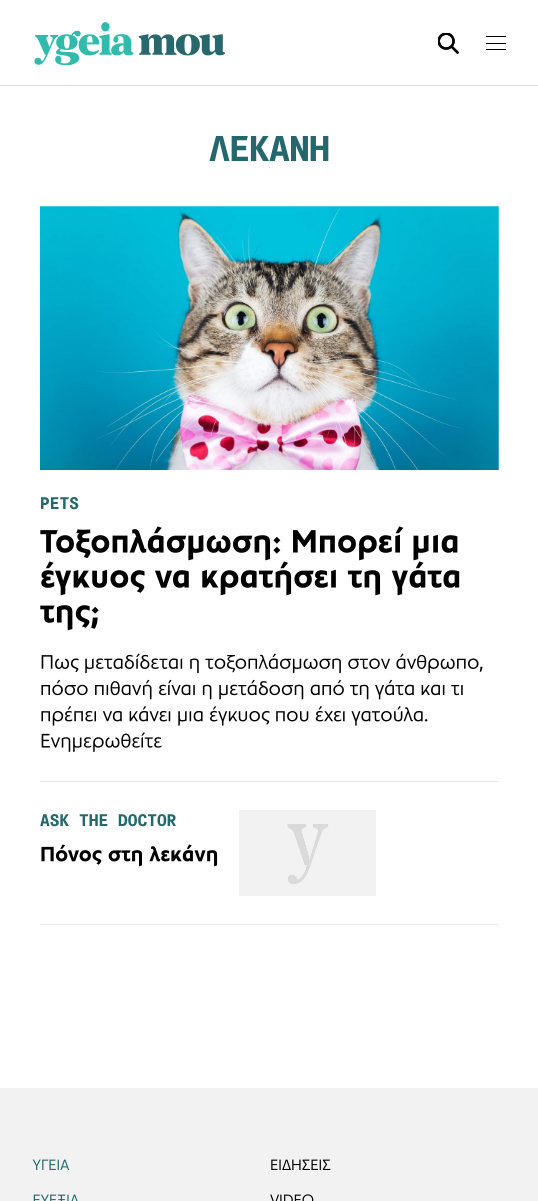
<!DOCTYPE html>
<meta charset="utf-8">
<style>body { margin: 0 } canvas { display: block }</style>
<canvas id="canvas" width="538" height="1201"></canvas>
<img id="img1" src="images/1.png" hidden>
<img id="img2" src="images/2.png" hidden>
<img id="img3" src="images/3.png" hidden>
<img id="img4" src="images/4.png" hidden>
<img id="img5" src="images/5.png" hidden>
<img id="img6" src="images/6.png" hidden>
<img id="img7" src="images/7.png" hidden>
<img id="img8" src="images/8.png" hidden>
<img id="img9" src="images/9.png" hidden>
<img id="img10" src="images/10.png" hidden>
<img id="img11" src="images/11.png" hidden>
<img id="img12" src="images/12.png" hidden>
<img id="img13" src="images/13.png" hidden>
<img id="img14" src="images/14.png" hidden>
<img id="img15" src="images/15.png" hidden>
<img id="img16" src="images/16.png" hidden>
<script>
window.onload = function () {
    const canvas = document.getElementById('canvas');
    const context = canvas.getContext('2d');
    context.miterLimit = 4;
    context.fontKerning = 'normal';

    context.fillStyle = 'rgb(255, 255, 255)';
    context.fillRect(0, 0, 538, 1201);
    context.fillStyle = 'rgb(223, 223, 223)';
    context.fillRect(0, 85, 538, 1);
    context.drawImage(document.getElementById('img1'), 34, 22, 191, 43);
    context.drawImage(document.getElementById('img2'), 438, 33, 21, 21);
    context.fillStyle = 'rgb(0, 0, 0)';
    context.fillRect(486, 36, 20, 1);
    context.fillRect(486, 43, 20, 1);
    context.fillRect(486, 49, 20, 1);
    context.fillStyle = 'rgb(234, 234, 234)';
    context.fillRect(40, 781, 459, 1);
    context.drawImage(document.getElementById('img3'), 40, 206, 459, 264);
    context.drawImage(document.getElementById('img4'), 40, 526, 418, 35);
    context.drawImage(document.getElementById('img5'), 41, 561, 419, 35);
    context.drawImage(document.getElementById('img6'), 40, 605, 59, 26);
    context.drawImage(document.getElementById('img7'), 41, 653, 442, 21);
    context.drawImage(document.getElementById('img8'), 41, 679, 422, 21);
    context.drawImage(document.getElementById('img9'), 41, 706, 387, 20);
    context.drawImage(document.getElementById('img10'), 41, 732, 121, 20);
    context.fillRect(40, 924, 459, 1);
    context.drawImage(document.getElementById('img11'), 41, 844, 177, 23);
    context.drawImage(document.getElementById('img12'), 239, 810, 137, 86);
    context.fillStyle = 'rgb(242, 242, 242)';
    context.fillRect(0, 1088, 538, 113);
    context.drawImage(document.getElementById('img13'), 32, 1159, 38, 11);
    context.drawImage(document.getElementById('img14'), 33, 1194, 45, 7);
    context.drawImage(document.getElementById('img15'), 271, 1159, 60, 11);
    context.drawImage(document.getElementById('img16'), 270, 1194, 44, 7);
    context.letterSpacing = '-1px';
    context.font = 'bold 35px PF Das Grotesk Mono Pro';
    context.fillStyle = 'rgb(36, 104, 110)';
    context.fillText('ΛΕΚΑΝΗ', 209, 161);
    context.letterSpacing = '0px';
    context.font = 'bold 16.25px PF Das Grotesk Mono Pro';
    context.fillText('PETS', 40, 509);
    context.fillText('ASK THE DOCTOR', 40, 826);
};
</script>
